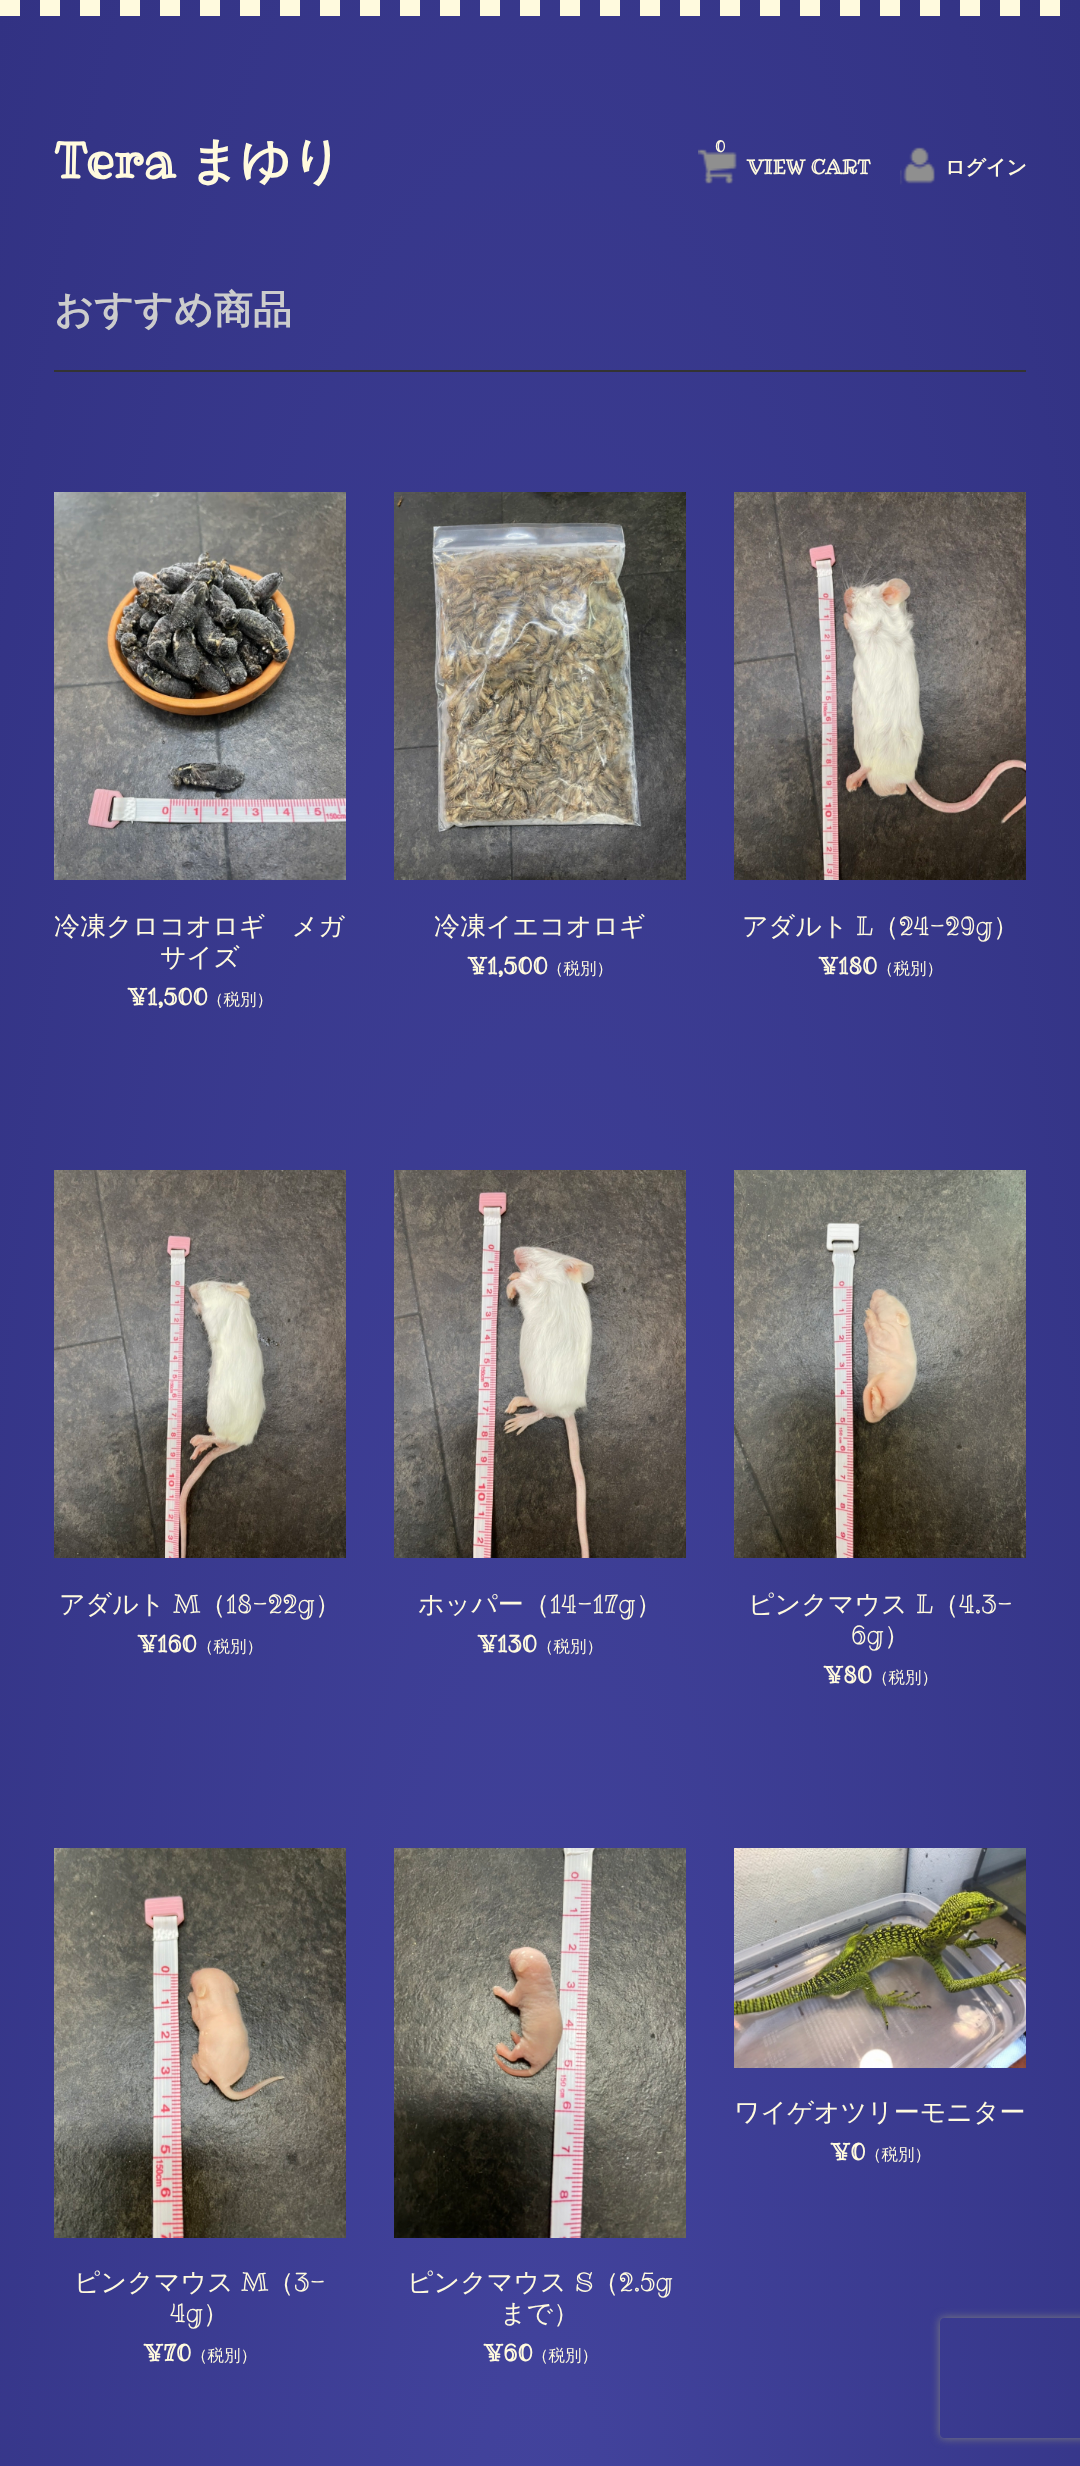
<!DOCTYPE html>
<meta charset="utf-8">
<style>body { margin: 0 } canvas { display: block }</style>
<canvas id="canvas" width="1080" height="2466"></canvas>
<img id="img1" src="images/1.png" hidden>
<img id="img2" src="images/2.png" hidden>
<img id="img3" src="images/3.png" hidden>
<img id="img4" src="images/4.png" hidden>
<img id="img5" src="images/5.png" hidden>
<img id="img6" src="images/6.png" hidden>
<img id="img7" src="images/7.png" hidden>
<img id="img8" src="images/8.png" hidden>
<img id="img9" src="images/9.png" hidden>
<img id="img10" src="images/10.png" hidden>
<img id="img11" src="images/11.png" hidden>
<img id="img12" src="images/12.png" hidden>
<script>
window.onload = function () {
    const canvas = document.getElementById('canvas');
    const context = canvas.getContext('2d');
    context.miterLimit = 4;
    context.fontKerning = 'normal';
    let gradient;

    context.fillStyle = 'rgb(255, 255, 255)';
    context.fillRect(0, 0, 1080, 2466);
    gradient = context.createRadialGradient(540, 540.17, 0, 540, 540.17, 764);
    gradient.addColorStop(0, 'rgb(67, 68, 158)');
    gradient.addColorStop(1, 'rgb(50, 50, 131)');
    context.fillStyle = gradient;
    context.beginPath();
    context.rect(0, 0, 1080, 2466);
    context.save();
    context.clip();
    context.scale(1, 3956 / 764);
    context.fillRect(0, 0, 1080, 477);
    context.restore();
    context.drawImage(document.getElementById('img1'), 0, 0, 1060, 16);
    context.drawImage(document.getElementById('img2'), 698, 149, 39, 35);
    context.drawImage(document.getElementById('img3'), 900, 147, 35, 38);
    context.fillStyle = 'rgb(51, 51, 51)';
    context.fillRect(54, 370, 972, 2);
    context.drawImage(document.getElementById('img4'), 54, 492, 292, 388);
    context.drawImage(document.getElementById('img5'), 394, 492, 292, 388);
    context.drawImage(document.getElementById('img6'), 734, 492, 292, 388);
    context.drawImage(document.getElementById('img7'), 54, 1170, 292, 388);
    context.drawImage(document.getElementById('img8'), 394, 1170, 292, 388);
    context.drawImage(document.getElementById('img9'), 734, 1170, 292, 388);
    context.drawImage(document.getElementById('img10'), 734, 1848, 292, 220);
    context.drawImage(document.getElementById('img11'), 54, 1848, 292, 390);
    context.drawImage(document.getElementById('img12'), 394, 1848, 292, 390);
    context.save();
    context.beginPath();
    context.moveTo(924, 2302);
    context.lineTo(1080, 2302);
    context.lineTo(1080, 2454);
    context.lineTo(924, 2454);
    context.closePath();
    context.moveTo(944, 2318);
    context.lineTo(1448, 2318);
    context.bezierCurveTo(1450, 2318, 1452, 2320, 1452, 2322);
    context.lineTo(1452, 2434);
    context.bezierCurveTo(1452, 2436, 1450, 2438, 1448, 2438);
    context.lineTo(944, 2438);
    context.bezierCurveTo(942, 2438, 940, 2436, 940, 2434);
    context.lineTo(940, 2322);
    context.bezierCurveTo(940, 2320, 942, 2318, 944, 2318);
    context.closePath();
    context.clip('evenodd');
    context.fillStyle = 'rgb(128, 128, 128)';
    context.filter = 'blur(5px)';
    context.beginPath();
    context.roundRect(940, 2318, 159, 120, 4);
    context.fill();
    context.filter = 'none';
    context.restore();
    context.font = 'bold 50px Ribeye Marrow';
    context.fillStyle = 'rgb(255, 250, 222)';
    context.fillText('Tera', 54, 178);
    context.font = 'bold 50px WenQuanYi Zen Hei';
    context.fillText('まゆり', 189, 178);
    context.font = 'bold 16px Ribeye Marrow';
    context.fillText('0', 715, 152);
    context.font = 'bold 20px Ribeye Marrow';
    context.fillText('VIEW CART', 747, 174);
    context.font = 'bold 20px WenQuanYi Zen Hei';
    context.fillText('ログイン', 945, 174);
    context.font = 'bold 39px WenQuanYi Zen Hei';
    context.fillStyle = 'rgb(204, 204, 204)';
    context.fillText('おすすめ商品', 54, 323);
    context.font = '500 26px WenQuanYi Zen Hei';
    context.fillStyle = 'rgb(255, 250, 222)';
    context.fillText('冷凍クロコオロギ　メガ', 54, 935);
    context.fillText('サイズ', 160, 966);
    context.font = 'bold 23.5px Ribeye Marrow';
    context.fillText('¥1,500', 127, 1005);
    context.font = '500 16.5px WenQuanYi Zen Hei';
    context.fillText('（税別）', 207, 1005);
    context.font = '500 26px WenQuanYi Zen Hei';
    context.fillText('冷凍イエコオロギ', 434, 935);
    context.font = 'bold 23.5px Ribeye Marrow';
    context.fillText('¥1,500', 467, 974);
    context.font = '500 16.5px WenQuanYi Zen Hei';
    context.fillText('（税別）', 547, 974);
    context.font = '500 26px WenQuanYi Zen Hei';
    context.fillText('アダルト', 742, 935);
    context.font = '26px Ribeye Marrow';
    context.fillText('L', 856, 935);
    context.font = '500 26px WenQuanYi Zen Hei';
    context.fillText('（', 873, 935);
    context.font = '26px Ribeye Marrow';
    context.fillText('24-29g', 899, 935);
    context.font = '500 26px WenQuanYi Zen Hei';
    context.fillText('）', 993, 935);
    context.font = 'bold 23.5px Ribeye Marrow';
    context.fillText('¥180', 818, 974);
    context.font = '500 16.5px WenQuanYi Zen Hei';
    context.fillText('（税別）', 877, 974);
    context.font = '500 26px WenQuanYi Zen Hei';
    context.fillText('アダルト', 59, 1613);
    context.font = '26px Ribeye Marrow';
    context.fillText('M', 173, 1613);
    context.font = '500 26px WenQuanYi Zen Hei';
    context.fillText('（', 200, 1613);
    context.font = '26px Ribeye Marrow';
    context.fillText('18-22g', 226, 1613);
    context.font = '500 26px WenQuanYi Zen Hei';
    context.fillText('）', 315, 1613);
    context.font = 'bold 23.5px Ribeye Marrow';
    context.fillText('¥160', 137, 1652);
    context.font = '500 16.5px WenQuanYi Zen Hei';
    context.fillText('（税別）', 197, 1652);
    context.font = '500 26px WenQuanYi Zen Hei';
    context.fillText('ホッパー（', 418, 1613);
    context.font = '26px Ribeye Marrow';
    context.fillText('14-17g', 550, 1613);
    context.font = '500 26px WenQuanYi Zen Hei';
    context.fillText('）', 636, 1613);
    context.font = 'bold 23.5px Ribeye Marrow';
    context.fillText('¥130', 477, 1652);
    context.font = '500 16.5px WenQuanYi Zen Hei';
    context.fillText('（税別）', 537, 1652);
    context.font = '500 26px WenQuanYi Zen Hei';
    context.fillText('ピンクマウス', 748, 1613);
    context.font = '26px Ribeye Marrow';
    context.fillText('L', 916, 1613);
    context.font = '500 26px WenQuanYi Zen Hei';
    context.fillText('（', 933, 1613);
    context.font = '26px Ribeye Marrow';
    context.fillText('4.3-', 959, 1613);
    context.fillText('6g', 851, 1644);
    context.font = '500 26px WenQuanYi Zen Hei';
    context.fillText('）', 884, 1644);
    context.font = 'bold 23.5px Ribeye Marrow';
    context.fillText('¥80', 823, 1683);
    context.font = '500 16.5px WenQuanYi Zen Hei';
    context.fillText('（税別）', 872, 1683);
    context.font = '500 26px WenQuanYi Zen Hei';
    context.fillText('ワイゲオツリーモニター', 734, 2121);
    context.font = 'bold 23.5px Ribeye Marrow';
    context.fillText('¥0', 830, 2160);
    context.font = '500 16.5px WenQuanYi Zen Hei';
    context.fillText('（税別）', 865, 2160);
    context.font = '500 26px WenQuanYi Zen Hei';
    context.fillText('ピンクマウス', 74, 2291);
    context.font = '26px Ribeye Marrow';
    context.fillText('M', 241, 2291);
    context.font = '500 26px WenQuanYi Zen Hei';
    context.fillText('（', 268, 2291);
    context.font = '26px Ribeye Marrow';
    context.fillText('3-', 294, 2291);
    context.fillText('4g', 170, 2322);
    context.font = '500 26px WenQuanYi Zen Hei';
    context.fillText('）', 203, 2322);
    context.font = 'bold 23.5px Ribeye Marrow';
    context.fillText('¥70', 143, 2361);
    context.font = '500 16.5px WenQuanYi Zen Hei';
    context.fillText('（税別）', 191, 2361);
    context.font = '500 26px WenQuanYi Zen Hei';
    context.fillText('ピンクマウス', 407, 2291);
    context.font = '26px Ribeye Marrow';
    context.fillText('S', 575, 2291);
    context.font = '500 26px WenQuanYi Zen Hei';
    context.fillText('（', 593, 2291);
    context.font = '26px Ribeye Marrow';
    context.fillText('2.5g', 619, 2291);
    context.font = '500 26px WenQuanYi Zen Hei';
    context.fillText('まで）', 500, 2322);
    context.font = 'bold 23.5px Ribeye Marrow';
    context.fillText('¥60', 483, 2361);
    context.font = '500 16.5px WenQuanYi Zen Hei';
    context.fillText('（税別）', 532, 2361);
};
</script>
